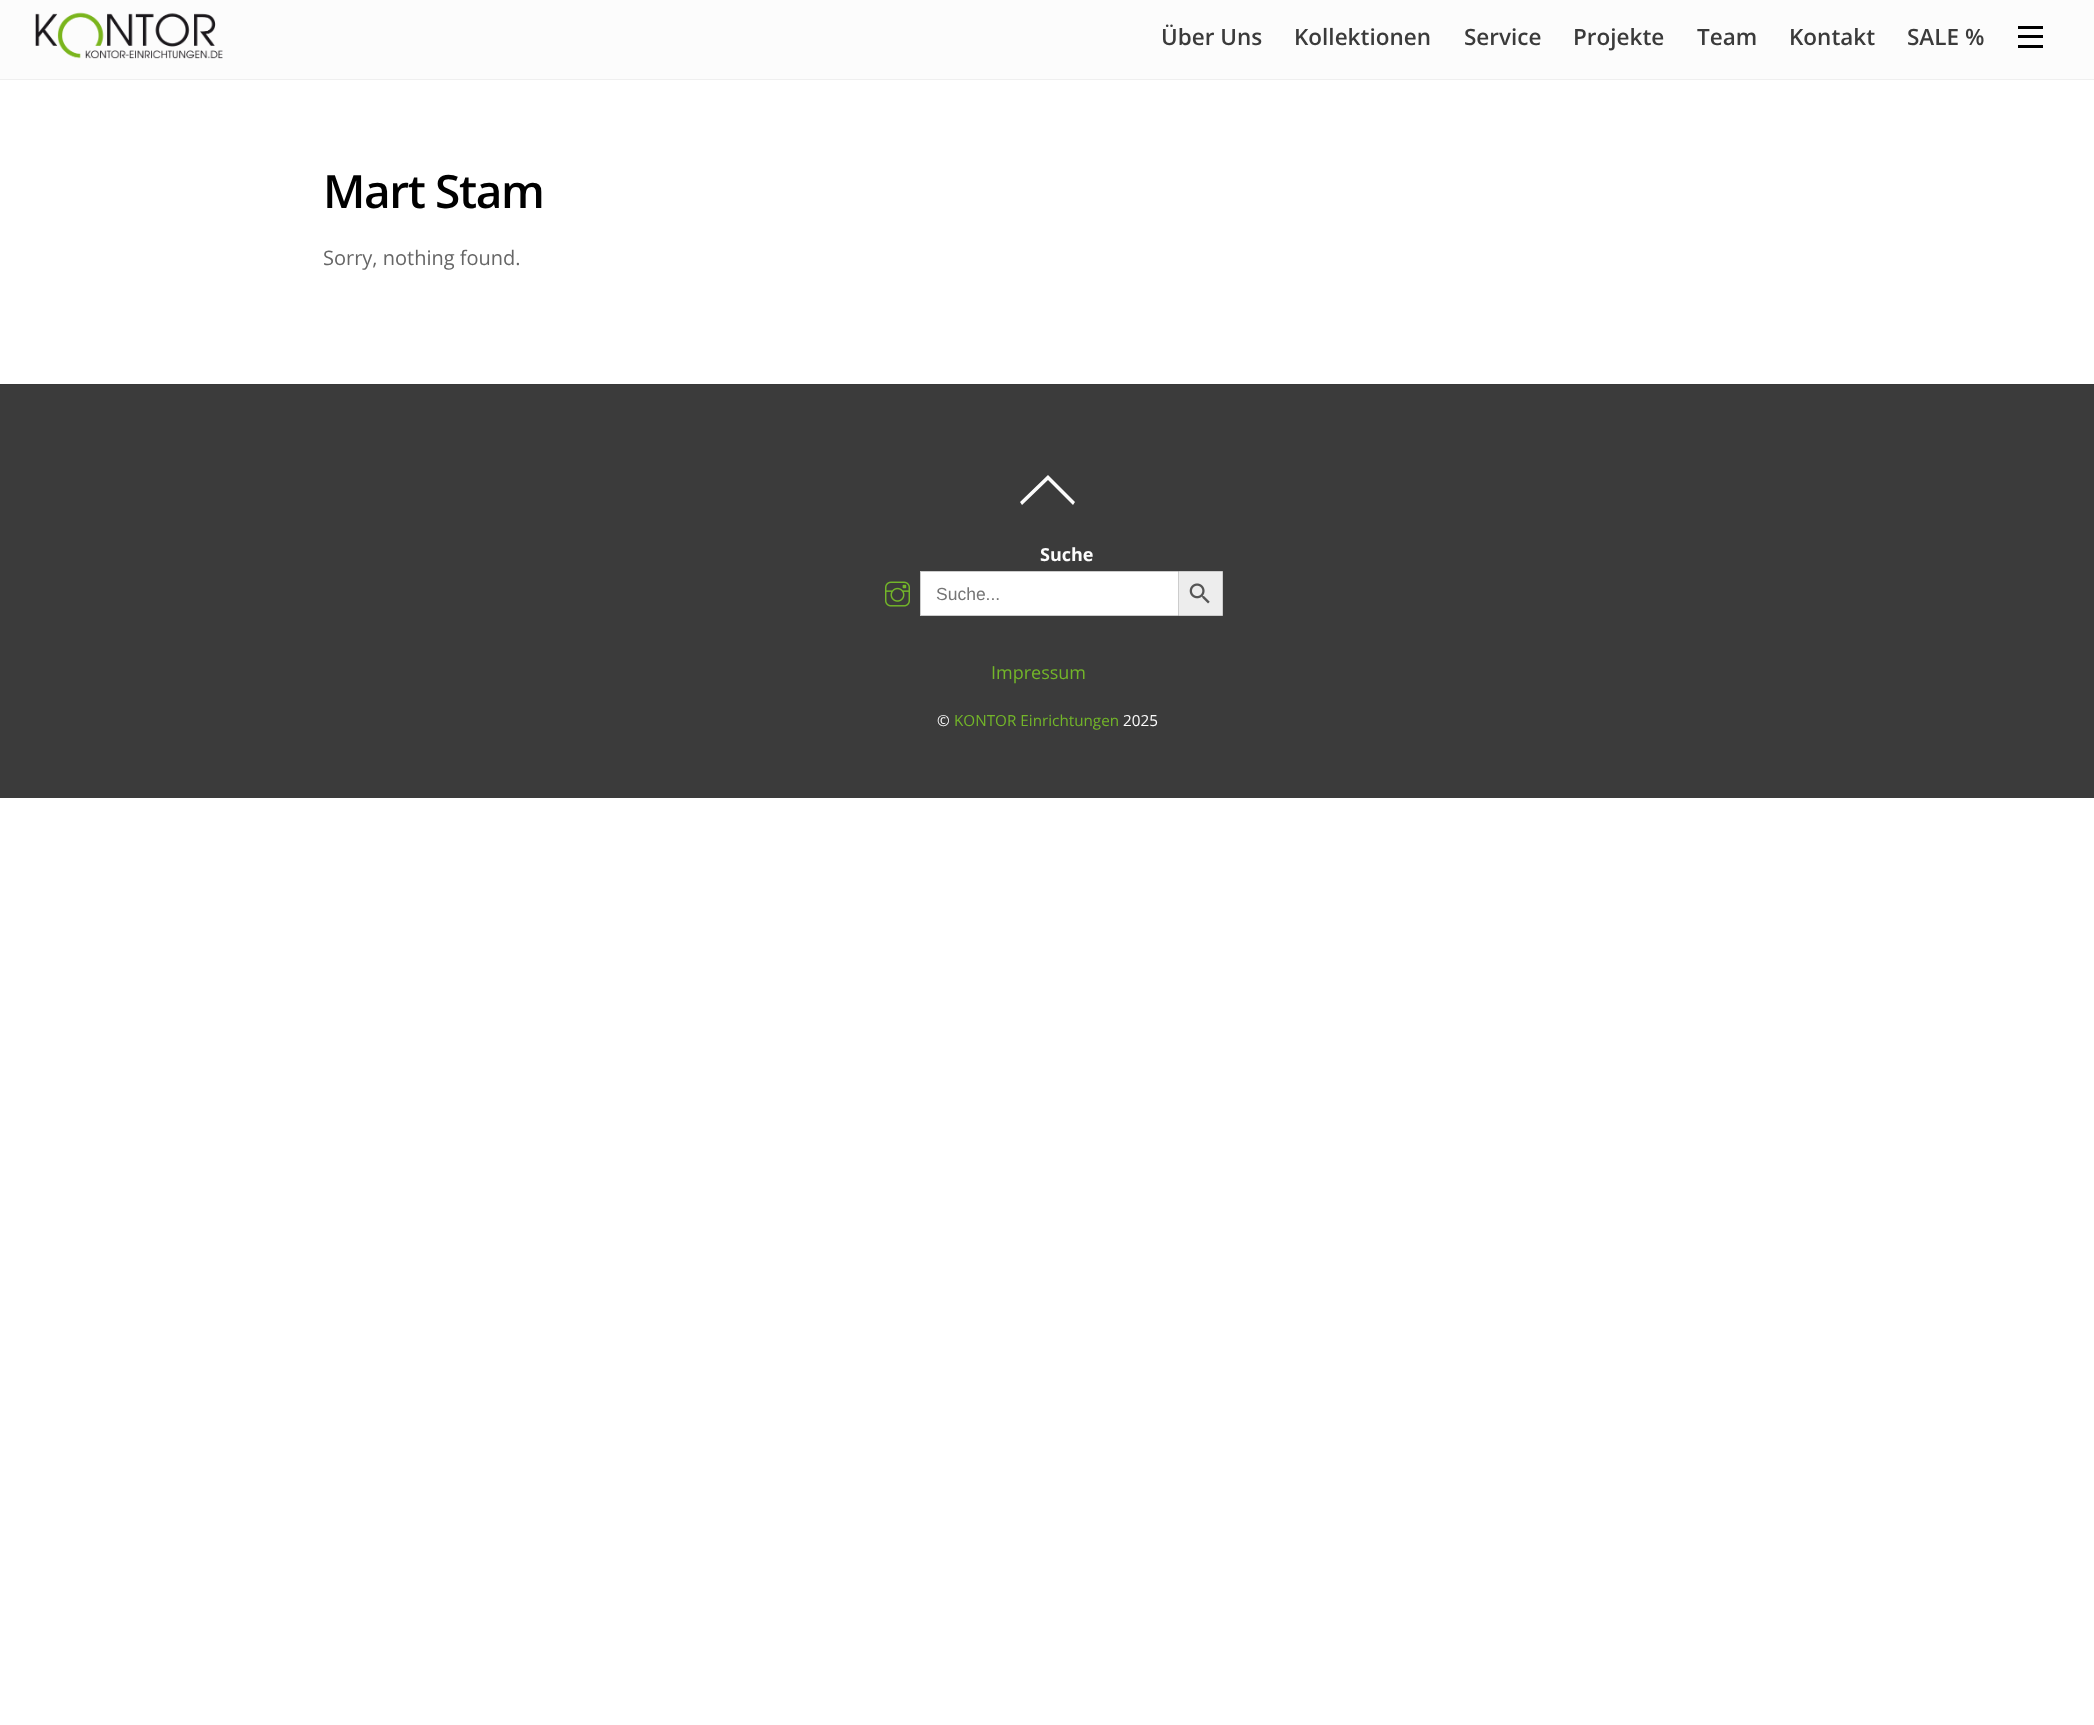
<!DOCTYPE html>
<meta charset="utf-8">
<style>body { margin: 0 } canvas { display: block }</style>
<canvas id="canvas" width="2094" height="1725"></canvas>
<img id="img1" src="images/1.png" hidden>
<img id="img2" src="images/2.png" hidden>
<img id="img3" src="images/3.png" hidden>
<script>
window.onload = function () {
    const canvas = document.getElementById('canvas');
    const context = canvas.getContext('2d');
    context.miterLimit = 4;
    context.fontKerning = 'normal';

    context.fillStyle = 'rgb(255, 255, 255)';
    context.fillRect(0, 0, 2094, 1725);
    context.fillStyle = 'rgb(252, 252, 252)';
    context.fillRect(0, 0, 2094, 79);
    context.fillStyle = 'rgb(239, 239, 239)';
    context.fillRect(0, 79, 2094, 1);
    context.drawImage(document.getElementById('img1'), 35, 12, 188, 47);
    context.fillStyle = 'rgb(0, 0, 0)';
    context.fillRect(2018, 45, 25, 3);
    context.fillRect(2018, 26, 25, 3);
    context.fillRect(2018, 35, 25, 3);
    context.fillStyle = 'rgb(59, 59, 59)';
    context.fillRect(0, 385, 2094, 413);
    context.fillStyle = 'rgb(56, 56, 56)';
    context.fillRect(0, 384, 2094, 1);
    context.fillStyle = 'rgb(252, 252, 252)';
    context.beginPath();
    context.moveTo(1075, 502);
    context.lineTo(1073, 505);
    context.lineTo(1048, 480);
    context.lineTo(1022, 505);
    context.lineTo(1020, 502);
    context.lineTo(1048, 475);
    context.closePath();
    context.fill();
    context.drawImage(document.getElementById('img2'), 885, 581, 25, 26);
    context.fillStyle = 'rgb(255, 255, 255)';
    context.fillRect(921, 572, 257, 43);
    context.fillStyle = 'rgb(204, 204, 204)';
    context.fillRect(920, 571, 258, 1);
    context.fillRect(920, 615, 258, 1);
    context.fillRect(920, 571, 1, 45);
    context.fillStyle = 'rgb(237, 237, 237)';
    context.beginPath();
    context.rect(1178.5, 571.5, 44, 44);
    context.fill();
    context.strokeStyle = 'rgb(204, 204, 204)';
    context.stroke();
    context.drawImage(document.getElementById('img3'), 1189, 583, 21, 21);
    context.font = '600 22.5px Open Sans';
    context.fillStyle = 'rgb(59, 59, 59)';
    context.fillText('Über Uns', 1161, 45);
    context.fillText('Kollektionen', 1294, 45);
    context.fillText('Service', 1464, 45);
    context.fillText('Projekte', 1573, 45);
    context.fillText('Team', 1697, 45);
    context.fillText('Kontakt', 1789, 45);
    context.fillText('SALE %', 1907, 45);
    context.letterSpacing = '-1.4px';
    context.font = '600 46px Open Sans';
    context.fillStyle = 'rgb(0, 0, 0)';
    context.fillText('Mart Stam', 323, 208);
    context.letterSpacing = '0px';
    context.font = '20px Open Sans';
    context.fillStyle = 'rgb(102, 102, 102)';
    context.fillText('Sorry, nothing found.', 323, 265);
    context.font = 'bold 18px Open Sans';
    context.fillStyle = 'rgb(252, 252, 252)';
    context.fillText('Suche', 1040, 561);
    context.font = '17.5px Liberation Sans';
    context.fillStyle = 'rgb(117, 117, 117)';
    context.fillText('Suche...', 936, 600);
    context.font = '18px Open Sans';
    context.fillStyle = 'rgb(115, 182, 41)';
    context.fillText('Impressum', 991, 679);
    context.font = '15.25px Open Sans';
    context.fillStyle = 'rgb(252, 252, 252)';
    context.fillText('©', 937, 726);
    context.fillStyle = 'rgb(115, 182, 41)';
    context.fillText('KONTOR Einrichtungen', 954, 726);
    context.fillStyle = 'rgb(252, 252, 252)';
    context.fillText('2025', 1123, 726);
};
</script>
